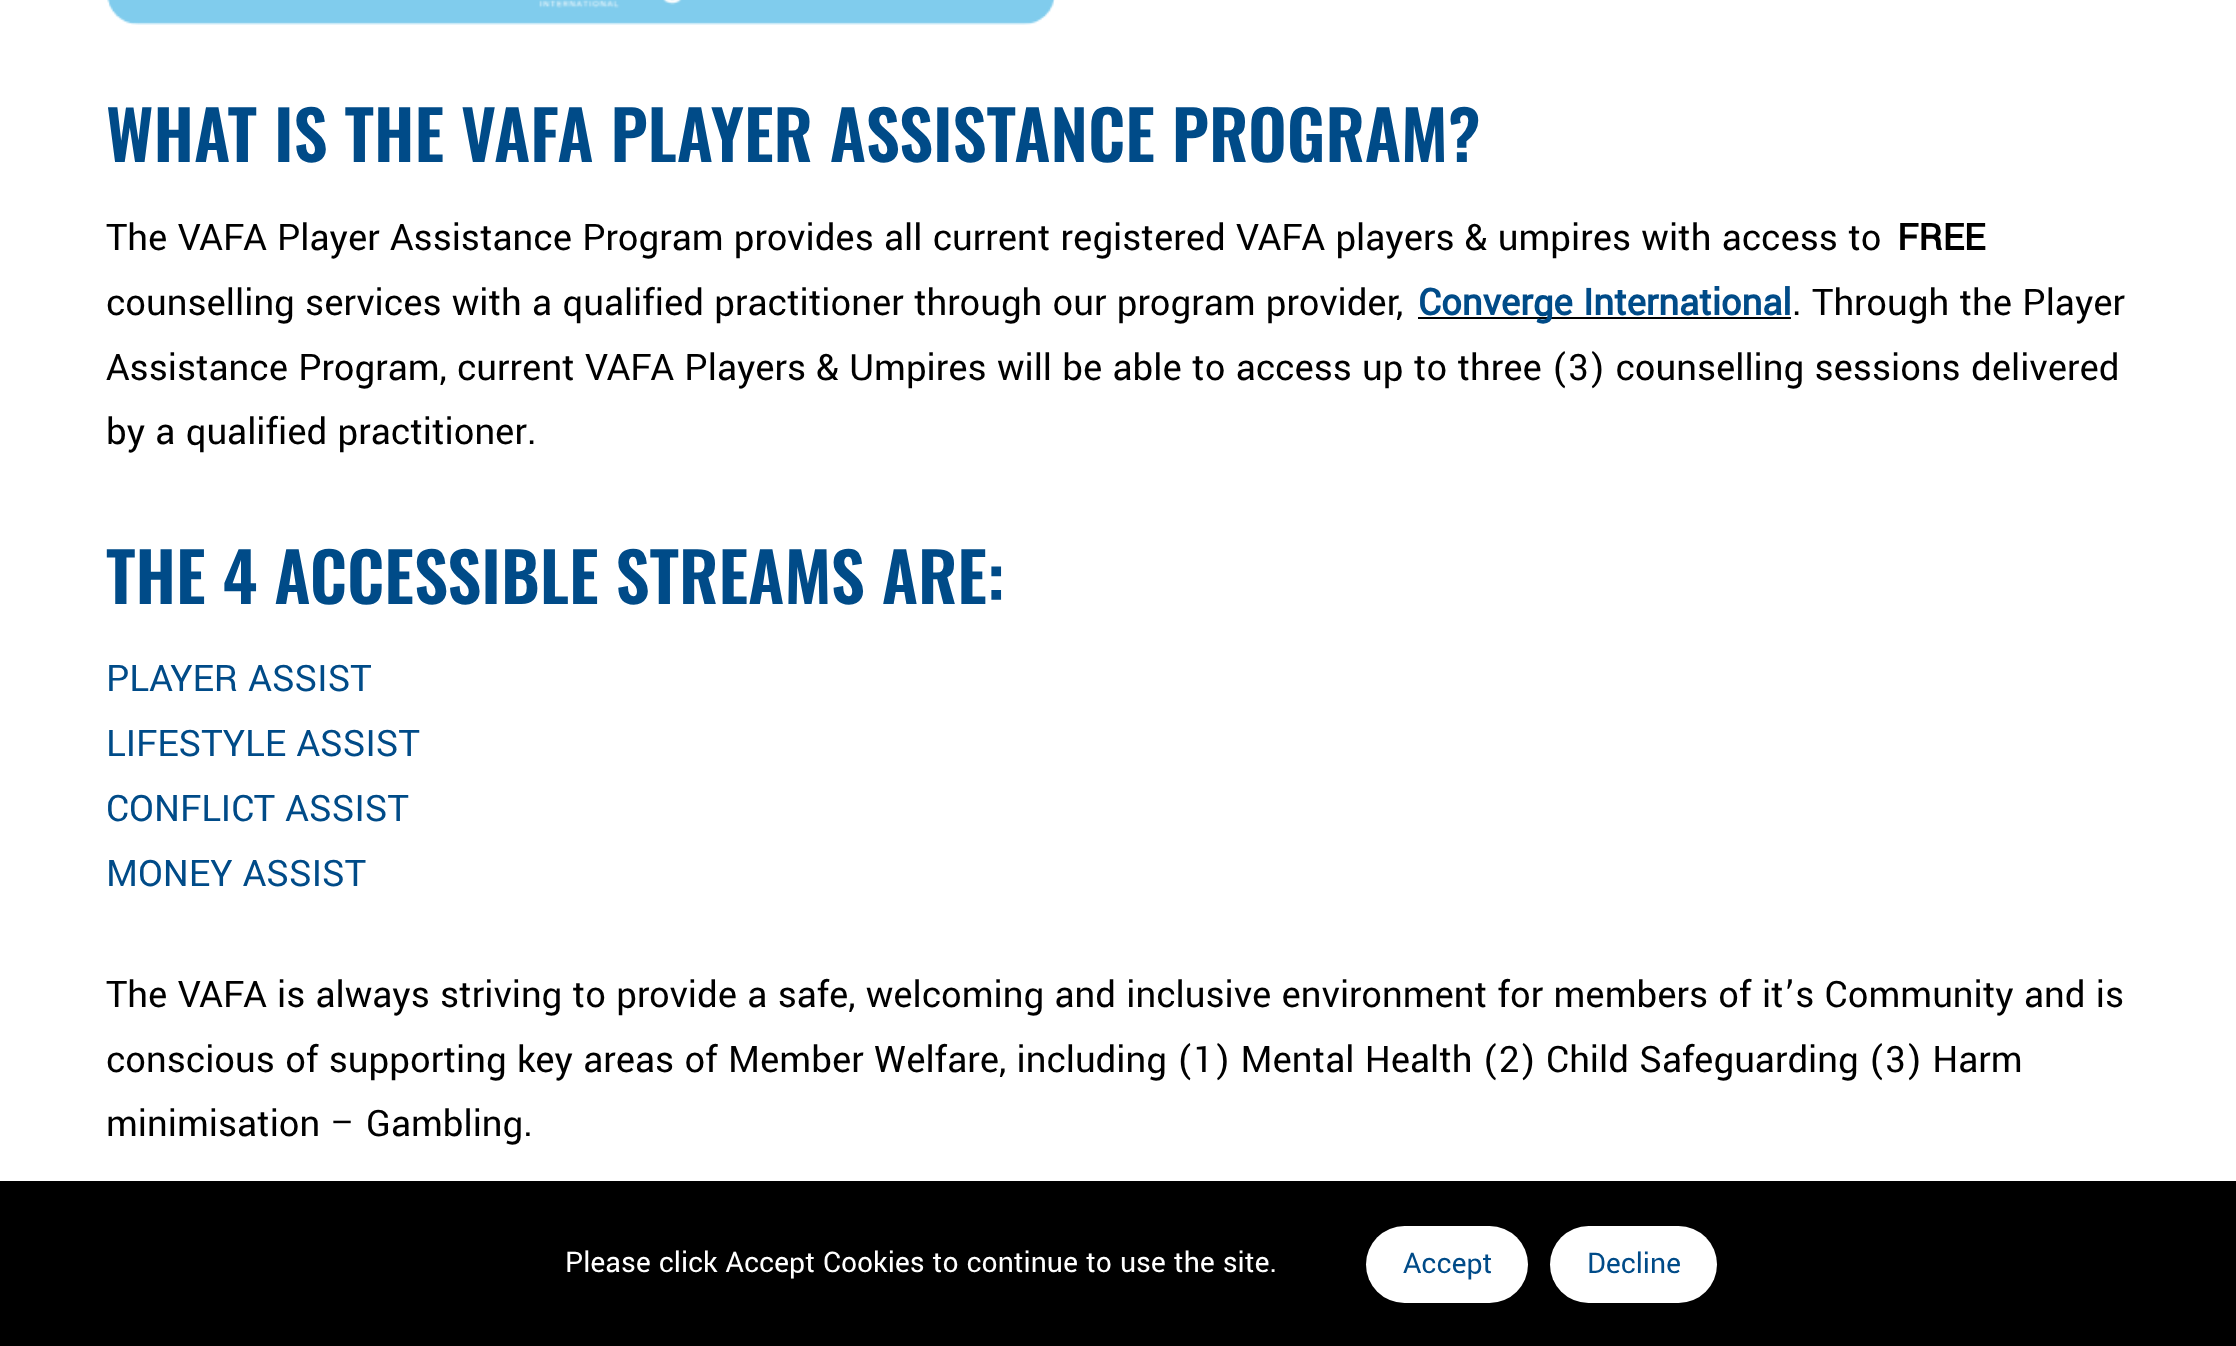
<!DOCTYPE html>
<meta charset="utf-8">
<style>body { margin: 0 } canvas { display: block }</style>
<canvas id="canvas" width="2236" height="1346"></canvas>
<img id="img1" src="images/1.png" hidden>
<script>
window.onload = function () {
    const canvas = document.getElementById('canvas');
    const context = canvas.getContext('2d');
    context.miterLimit = 4;
    context.fontKerning = 'normal';

    context.fillStyle = 'rgb(255, 255, 255)';
    context.fillRect(0, 0, 2236, 1346);
    context.drawImage(document.getElementById('img1'), 107, 0, 948, 25);
    context.fillStyle = 'rgb(0, 0, 0)';
    context.fillRect(1418, 317, 373, 2);
    context.fillRect(0, 1181, 2236, 165);
    context.fillStyle = 'rgb(255, 255, 255)';
    context.beginPath();
    context.roundRect(1366, 1226, 162, 77, 38.5);
    context.fill();
    context.beginPath();
    context.roundRect(1550, 1226, 167, 77, 38.5);
    context.fill();
    context.font = '600 67.5px Oswald';
    context.fillStyle = 'rgb(0, 75, 136)';
    context.fillText('WHAT IS THE VAFA PLAYER ASSISTANCE PROGRAM?', 106, 162);
    context.font = '40.5px Yantramanav';
    context.fillStyle = 'rgb(0, 0, 0)';
    context.fillText('The VAFA Player Assistance Program provides all current registered VAFA players & umpires with access to', 106, 250);
    context.font = 'bold 40.5px Yantramanav';
    context.fillText('FREE', 1897, 250);
    context.font = '40.5px Yantramanav';
    context.fillText('counselling services with a qualified practitioner through our program provider,', 106, 315);
    context.font = 'bold 40.5px Yantramanav';
    context.fillStyle = 'rgb(0, 75, 136)';
    context.fillText('Converge International', 1418, 315);
    context.font = '40.5px Yantramanav';
    context.fillStyle = 'rgb(0, 0, 0)';
    context.fillText('. Through the Player', 1792, 315);
    context.fillText('Assistance Program, current VAFA Players & Umpires will be able to access up to three (3) counselling sessions delivered', 106, 380);
    context.fillText('by a qualified practitioner.', 106, 444);
    context.font = '600 67.5px Oswald';
    context.fillStyle = 'rgb(0, 75, 136)';
    context.fillText('THE 4 ACCESSIBLE STREAMS ARE:', 106, 604);
    context.font = '40.5px Yantramanav';
    context.fillText('PLAYER ASSIST', 106, 691);
    context.fillText('LIFESTYLE ASSIST', 106, 756);
    context.fillText('CONFLICT ASSIST', 106, 821);
    context.fillText('MONEY ASSIST', 106, 886);
    context.fillStyle = 'rgb(0, 0, 0)';
    context.fillText('The VAFA is always striving to provide a safe, welcoming and inclusive environment for members of it’s Community and is', 106, 1007);
    context.fillText('conscious of supporting key areas of Member Welfare, including (1) Mental Health (2) Child Safeguarding (3) Harm', 106, 1072);
    context.fillText('minimisation – Gambling.', 106, 1136);
    context.font = '31.5px Yantramanav';
    context.fillStyle = 'rgb(255, 255, 255)';
    context.fillText('Please click Accept Cookies to continue to use the site.', 565, 1272);
    context.fillStyle = 'rgb(0, 75, 136)';
    context.fillText('Accept', 1403, 1273);
    context.fillText('Decline', 1587, 1273);
};
</script>
